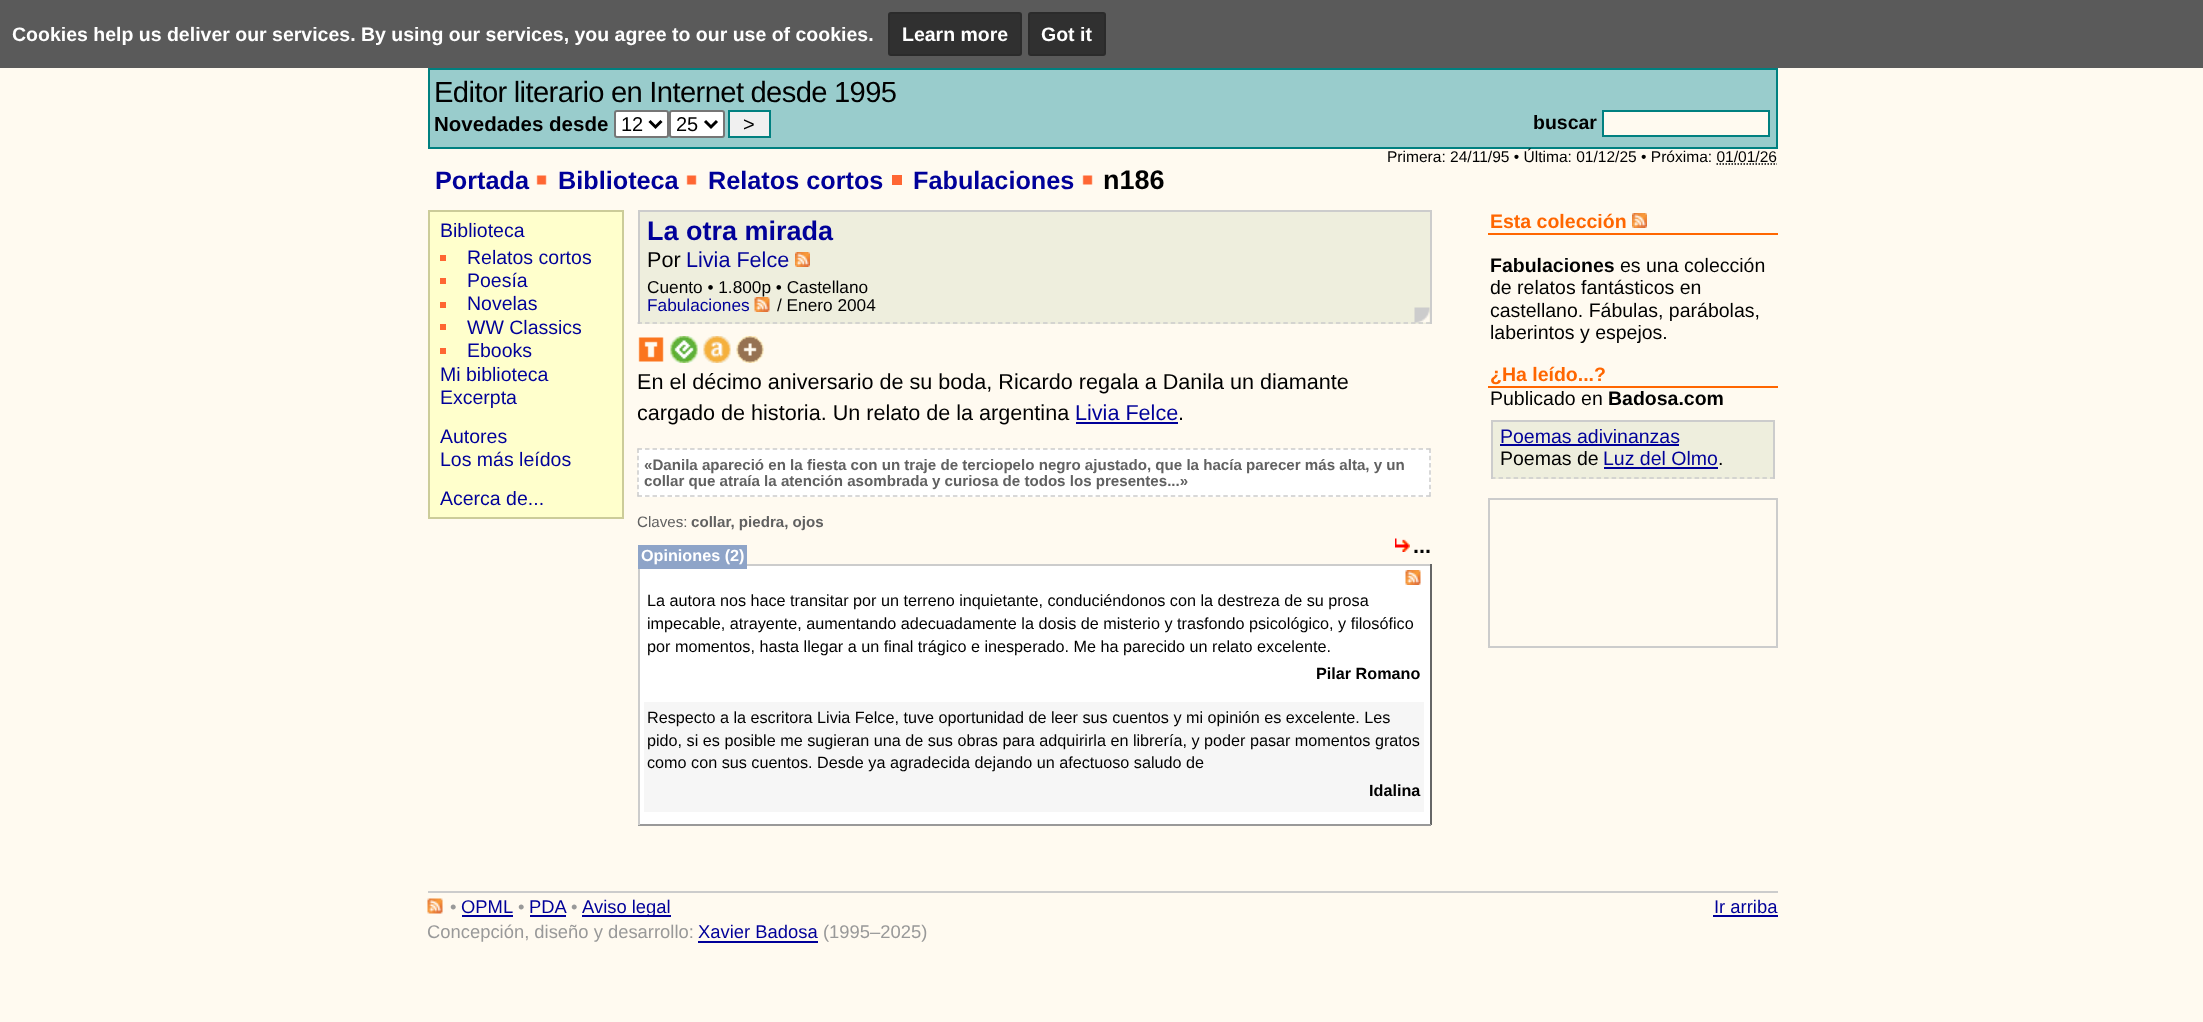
<!DOCTYPE html>
<meta charset="utf-8">
<style>body { margin: 0 } canvas { display: block }</style>
<canvas id="canvas" width="2203" height="1022"></canvas>
<img id="img1" src="images/1.png" hidden>
<img id="img2" src="images/2.png" hidden>
<img id="img3" src="images/3.png" hidden>
<img id="img4" src="images/4.png" hidden>
<img id="img5" src="images/5.png" hidden>
<img id="img6" src="images/6.png" hidden>
<img id="img7" src="images/7.png" hidden>
<img id="img8" src="images/8.png" hidden>
<img id="img9" src="images/9.png" hidden>
<img id="img10" src="images/10.png" hidden>
<img id="img11" src="images/11.png" hidden>
<script>
window.onload = function () {
    const canvas = document.getElementById('canvas');
    const context = canvas.getContext('2d');
    context.miterLimit = 4;
    context.fontKerning = 'normal';

    context.fillStyle = 'rgb(255, 250, 240)';
    context.fillRect(0, 0, 2203, 1022);
    context.fillStyle = 'rgb(90, 90, 90)';
    context.fillRect(0, 0, 2203, 68);
    context.fillStyle = 'rgb(48, 48, 48)';
    context.beginPath();
    context.roundRect(888, 12, 134, 44, 3);
    context.fill();
    context.beginPath();
    context.roundRect(889, 13, 132, 42, 2);
    context.strokeStyle = 'rgba(0, 0, 0, 0.1)';
    context.lineWidth = 2;
    context.stroke();
    context.beginPath();
    context.roundRect(1028, 12, 78, 44, 3);
    context.fill();
    context.beginPath();
    context.roundRect(1029, 13, 76, 42, 2);
    context.stroke();
    context.fillStyle = 'rgb(153, 204, 204)';
    context.beginPath();
    context.rect(429, 69, 1348, 79);
    context.fill();
    context.strokeStyle = 'rgb(0, 128, 128)';
    context.stroke();
    context.fillStyle = 'rgb(255, 255, 255)';
    context.beginPath();
    context.roundRect(615, 111, 53, 26, 2);
    context.fill();
    context.strokeStyle = 'rgb(118, 118, 118)';
    context.stroke();
    context.beginPath();
    context.moveTo(649.5, 121);
    context.lineTo(655.5, 127);
    context.lineTo(661.5, 121);
    context.strokeStyle = 'rgb(0, 0, 0)';
    context.lineWidth = 3;
    context.stroke();
    context.beginPath();
    context.roundRect(670, 111, 54, 26, 2);
    context.fill();
    context.strokeStyle = 'rgb(118, 118, 118)';
    context.lineWidth = 2;
    context.stroke();
    context.beginPath();
    context.moveTo(705, 121);
    context.lineTo(711, 127);
    context.lineTo(717, 121);
    context.strokeStyle = 'rgb(0, 0, 0)';
    context.lineWidth = 3;
    context.stroke();
    context.fillStyle = 'rgb(240, 240, 240)';
    context.beginPath();
    context.rect(729, 111, 41, 26);
    context.fill();
    context.strokeStyle = 'rgb(0, 128, 128)';
    context.lineWidth = 2;
    context.stroke();
    context.fillStyle = 'rgb(255, 250, 240)';
    context.beginPath();
    context.rect(1603, 111, 166, 25);
    context.fill();
    context.stroke();
    context.beginPath();
    context.moveTo(1716.5, 164);
    context.lineTo(1777, 164);
    context.strokeStyle = 'rgb(0, 0, 0)';
    context.lineWidth = 1.5;
    context.setLineDash([1.5, 1.5]);
    context.stroke();
    context.drawImage(document.getElementById('img1'), 536, 175, 11, 10);
    context.drawImage(document.getElementById('img1'), 686, 175, 11, 10);
    context.fillStyle = 'rgb(255, 102, 51)';
    context.fillRect(892, 175, 10, 10);
    context.drawImage(document.getElementById('img1'), 1082, 175, 11, 10);
    context.fillStyle = 'rgb(255, 255, 204)';
    context.beginPath();
    context.rect(429, 211, 194, 307);
    context.fill();
    context.strokeStyle = 'rgb(204, 204, 153)';
    context.lineWidth = 2;
    context.setLineDash([]);
    context.stroke();
    context.fillStyle = 'rgb(255, 102, 51)';
    context.fillRect(440, 255, 6, 6);
    context.fillRect(440, 278, 6, 6);
    context.fillRect(440, 302, 6, 6);
    context.fillRect(440, 324, 6, 6);
    context.fillRect(440, 348, 6, 6);
    context.fillStyle = 'rgb(238, 238, 221)';
    context.fillRect(640, 212, 790, 112);
    context.drawImage(document.getElementById('img2'), 1414, 307, 16, 16);
    context.fillStyle = 'rgb(204, 204, 204)';
    context.fillRect(638, 210, 793, 2);
    context.fillRect(1430, 210, 2, 114);
    context.beginPath();
    context.moveTo(637.5, 323);
    context.lineTo(1431, 323);
    context.strokeStyle = 'rgb(204, 204, 204)';
    context.lineWidth = 1.5;
    context.setLineDash([4.5, 3.01]);
    context.stroke();
    context.fillRect(638, 210, 2, 114);
    context.drawImage(document.getElementById('img3'), 795, 252, 15, 15);
    context.drawImage(document.getElementById('img4'), 754, 297, 16, 15);
    context.drawImage(document.getElementById('img5'), 638, 337, 26, 25);
    context.drawImage(document.getElementById('img6'), 670, 336, 28, 27);
    context.drawImage(document.getElementById('img7'), 703, 336, 28, 27);
    context.drawImage(document.getElementById('img8'), 736, 336, 28, 27);
    context.fillStyle = 'rgb(0, 0, 153)';
    context.fillRect(1076, 422, 102, 2);
    context.fillStyle = 'rgb(255, 255, 255)';
    context.fillRect(638, 449, 793, 48);
    context.beginPath();
    context.moveTo(637.5, 449);
    context.lineTo(1431, 449);
    context.stroke();
    context.beginPath();
    context.moveTo(1430, 448.5);
    context.lineTo(1430, 496.5);
    context.setLineDash([4.5, 2.75]);
    context.stroke();
    context.beginPath();
    context.moveTo(637.5, 496);
    context.lineTo(1431, 496);
    context.setLineDash([4.5, 3.01]);
    context.stroke();
    context.beginPath();
    context.moveTo(638, 448.5);
    context.lineTo(638, 496.5);
    context.setLineDash([4.5, 2.75]);
    context.stroke();
    context.fillRect(640, 566, 790, 258);
    context.fillStyle = 'rgb(204, 204, 204)';
    context.fillRect(747, 564, 684, 2);
    context.fillStyle = 'rgb(102, 102, 102)';
    context.fillRect(1430, 564, 2, 261);
    context.fillStyle = 'rgb(153, 153, 153)';
    context.fillRect(638, 824, 793, 2);
    context.fillStyle = 'rgb(204, 204, 204)';
    context.fillRect(638, 564, 2, 261);
    context.fillStyle = 'rgb(142, 164, 200)';
    context.fillRect(638, 545, 109, 24);
    context.drawImage(document.getElementById('img9'), 1405, 570, 16, 15);
    context.fillStyle = 'rgb(246, 246, 246)';
    context.fillRect(644, 702, 780, 110);
    context.drawImage(document.getElementById('img10'), 1395, 538, 15, 14);
    context.fillStyle = 'rgb(255, 102, 0)';
    context.fillRect(1488, 233, 290, 2);
    context.drawImage(document.getElementById('img3'), 1632, 213, 15, 15);
    context.fillRect(1488, 386, 290, 2);
    context.fillStyle = 'rgb(238, 238, 221)';
    context.fillRect(1493, 422, 280, 57);
    context.fillStyle = 'rgb(204, 204, 204)';
    context.fillRect(1491, 420, 284, 2);
    context.fillRect(1773, 420, 2, 59);
    context.beginPath();
    context.moveTo(1491, 478);
    context.lineTo(1774.5, 478);
    context.setLineDash([4.5, 3.04]);
    context.stroke();
    context.fillRect(1491, 420, 2, 59);
    context.fillStyle = 'rgb(0, 0, 153)';
    context.fillRect(1500, 444, 179, 2);
    context.fillRect(1604, 467, 114, 2);
    context.lineWidth = 2;
    context.setLineDash([]);
    context.strokeRect(1489, 499, 288, 148);
    context.fillStyle = 'rgb(204, 204, 204)';
    context.fillRect(428, 891, 1350, 2);
    context.drawImage(document.getElementById('img11'), 427, 898, 16, 16);
    context.fillStyle = 'rgb(0, 0, 153)';
    context.fillRect(462, 915, 51, 2);
    context.fillRect(530, 915, 36, 2);
    context.fillRect(582, 915, 89, 2);
    context.fillRect(1713, 915, 65, 2);
    context.fillRect(698, 941, 120, 2);
    context.font = 'bold 19.5px Liberation Sans';
    context.fillStyle = 'rgb(255, 255, 255)';
    context.fillText('Cookies help us deliver our services. By using our services, you agree to our use of cookies.', 12, 41);
    context.fillText('Learn more', 902, 41);
    context.fillText('Got it', 1041, 41);
    context.letterSpacing = '-0.6px';
    context.wordSpacing = '-0.5px';
    context.font = '29.2px Liberation Sans';
    context.fillStyle = 'rgb(0, 0, 0)';
    context.fillText('Editor literario en Internet desde 1995', 434, 102);
    context.letterSpacing = '0px';
    context.wordSpacing = '0px';
    context.font = 'bold 20.5px Liberation Sans';
    context.fillText('Novedades desde', 434, 131);
    context.font = '20px Liberation Sans';
    context.fillText('12', 621, 131);
    context.fillText('25', 676, 131);
    context.fillText('>', 743, 131);
    context.font = 'bold 19.5px Liberation Sans';
    context.fillText('buscar', 1533, 129);
    context.font = '15.55px Liberation Sans';
    context.fillText('Primera: 24/11/95 • Última: 01/12/25 • Próxima: 01/01/26', 1387, 162);
    context.font = 'bold 25.25px Liberation Sans';
    context.fillStyle = 'rgb(0, 0, 153)';
    context.fillText('Portada', 435, 189);
    context.fillText('Biblioteca', 558, 189);
    context.fillText('Relatos cortos', 708, 189);
    context.fillText('Fabulaciones', 913, 189);
    context.font = 'bold 27px Liberation Sans';
    context.fillStyle = 'rgb(0, 0, 0)';
    context.fillText('n186', 1103, 189);
    context.font = '19.5px Liberation Sans';
    context.fillStyle = 'rgb(0, 0, 153)';
    context.fillText('Biblioteca', 440, 237);
    context.fillText('Relatos cortos', 467, 264);
    context.fillText('Poesía', 467, 287);
    context.fillText('Novelas', 467, 310);
    context.fillText('WW Classics', 467, 334);
    context.fillText('Ebooks', 467, 357);
    context.fillText('Mi biblioteca', 440, 381);
    context.fillText('Excerpta', 440, 404);
    context.fillText('Autores', 440, 443);
    context.fillText('Los más leídos', 440, 466);
    context.fillText('Acerca de...', 440, 505);
    context.font = 'bold 27px Liberation Sans';
    context.fillText('La otra mirada', 647, 240);
    context.font = '21.6px Liberation Sans';
    context.fillStyle = 'rgb(0, 0, 0)';
    context.fillText('Por', 647, 267);
    context.fillStyle = 'rgb(0, 0, 153)';
    context.fillText('Livia Felce', 686, 267);
    context.font = '17.25px Liberation Sans';
    context.fillStyle = 'rgb(0, 0, 0)';
    context.fillText('Cuento • 1.800p • Castellano', 647, 293);
    context.fillStyle = 'rgb(0, 0, 153)';
    context.fillText('Fabulaciones', 647, 311);
    context.fillStyle = 'rgb(0, 0, 0)';
    context.fillText('/ Enero 2004', 777, 311);
    context.font = '21.6px Liberation Sans';
    context.fillText('En el décimo aniversario de su boda, Ricardo regala a Danila un diamante', 637, 389);
    context.fillText('cargado de historia. Un relato de la argentina', 637, 420);
    context.fillStyle = 'rgb(0, 0, 153)';
    context.fillText('Livia Felce', 1075, 420);
    context.fillStyle = 'rgb(0, 0, 0)';
    context.fillText('.', 1178, 420);
    context.font = 'bold 15.12px Liberation Sans';
    context.fillStyle = 'rgb(97, 97, 97)';
    context.fillText('«Danila apareció en la fiesta con un traje de terciopelo negro ajustado, que la hacía parecer más alta, y un', 644, 470);
    context.fillText('collar que atraía la atención asombrada y curiosa de todos los presentes...»', 644, 486);
    context.font = '15.12px Liberation Sans';
    context.fillText('Claves:', 637, 527);
    context.font = 'bold 15.12px Liberation Sans';
    context.fillText('collar, piedra, ojos', 691, 527);
    context.font = 'bold 16.2px Liberation Sans';
    context.fillStyle = 'rgb(255, 255, 255)';
    context.fillText('Opiniones (2)', 641, 561);
    context.font = '16.2px Liberation Sans';
    context.fillStyle = 'rgb(0, 0, 0)';
    context.fillText('La autora nos hace transitar por un terreno inquietante, conduciéndonos con la destreza de su prosa', 647, 606);
    context.fillText('impecable, atrayente, aumentando adecuadamente la dosis de misterio y trasfondo psicológico, y filosófico', 647, 629);
    context.fillText('por momentos, hasta llegar a un final trágico e inesperado. Me ha parecido un relato excelente.', 647, 652);
    context.font = 'bold 16.2px Liberation Sans';
    context.fillText('Pilar Romano', 1316, 679);
    context.font = '16.2px Liberation Sans';
    context.fillText('Respecto a la escritora Livia Felce, tuve oportunidad de leer sus cuentos y mi opinión es excelente. Les', 647, 723);
    context.fillText('pido, si es posible me sugieran una de sus obras para adquirirla en librería, y poder pasar momentos gratos', 647, 746);
    context.fillText('como con sus cuentos. Desde ya agradecida dejando un afectuoso saludo de', 647, 768);
    context.font = 'bold 16.2px Liberation Sans';
    context.fillText('Idalina', 1369, 796);
    context.font = 'bold 21.6px Liberation Sans';
    context.fillText('...', 1413, 553);
    context.font = 'bold 19.5px Liberation Sans';
    context.fillStyle = 'rgb(255, 102, 0)';
    context.fillText('Esta colección', 1490, 228);
    context.fillStyle = 'rgb(0, 0, 0)';
    context.fillText('Fabulaciones', 1490, 272);
    context.font = '19.5px Liberation Sans';
    context.fillText('es una colección', 1620, 272);
    context.fillText('de relatos fantásticos en', 1490, 294);
    context.fillText('castellano. Fábulas, parábolas,', 1490, 317);
    context.fillText('laberintos y espejos.', 1490, 339);
    context.font = 'bold 19.5px Liberation Sans';
    context.fillStyle = 'rgb(255, 102, 0)';
    context.fillText('¿Ha leído...?', 1490, 381);
    context.font = '19.5px Liberation Sans';
    context.fillStyle = 'rgb(0, 0, 0)';
    context.fillText('Publicado en', 1490, 405);
    context.font = 'bold 19.5px Liberation Sans';
    context.fillText('Badosa.com', 1608, 405);
    context.font = '19.5px Liberation Sans';
    context.fillStyle = 'rgb(0, 0, 153)';
    context.fillText('Poemas adivinanzas', 1500, 443);
    context.fillStyle = 'rgb(0, 0, 0)';
    context.fillText('Poemas de', 1500, 465);
    context.fillStyle = 'rgb(0, 0, 153)';
    context.fillText('Luz del Olmo', 1603, 465);
    context.fillStyle = 'rgb(0, 0, 0)';
    context.fillText('.', 1718, 465);
    context.font = '18.4px Liberation Sans';
    context.fillStyle = 'rgb(153, 153, 153)';
    context.fillText('•', 450, 913);
    context.fillStyle = 'rgb(0, 0, 153)';
    context.fillText('OPML', 461, 913);
    context.fillStyle = 'rgb(153, 153, 153)';
    context.fillText('•', 518, 913);
    context.fillStyle = 'rgb(0, 0, 153)';
    context.fillText('PDA', 529, 913);
    context.fillStyle = 'rgb(153, 153, 153)';
    context.fillText('•', 571, 913);
    context.fillStyle = 'rgb(0, 0, 153)';
    context.fillText('Aviso legal', 582, 913);
    context.fillText('Ir arriba', 1714, 913);
    context.fillStyle = 'rgb(153, 153, 153)';
    context.fillText('Concepción, diseño y desarrollo:', 427, 938);
    context.fillStyle = 'rgb(0, 0, 153)';
    context.fillText('Xavier Badosa', 698, 938);
    context.fillStyle = 'rgb(153, 153, 153)';
    context.fillText('(1995–2025)', 823, 938);
};
</script>
